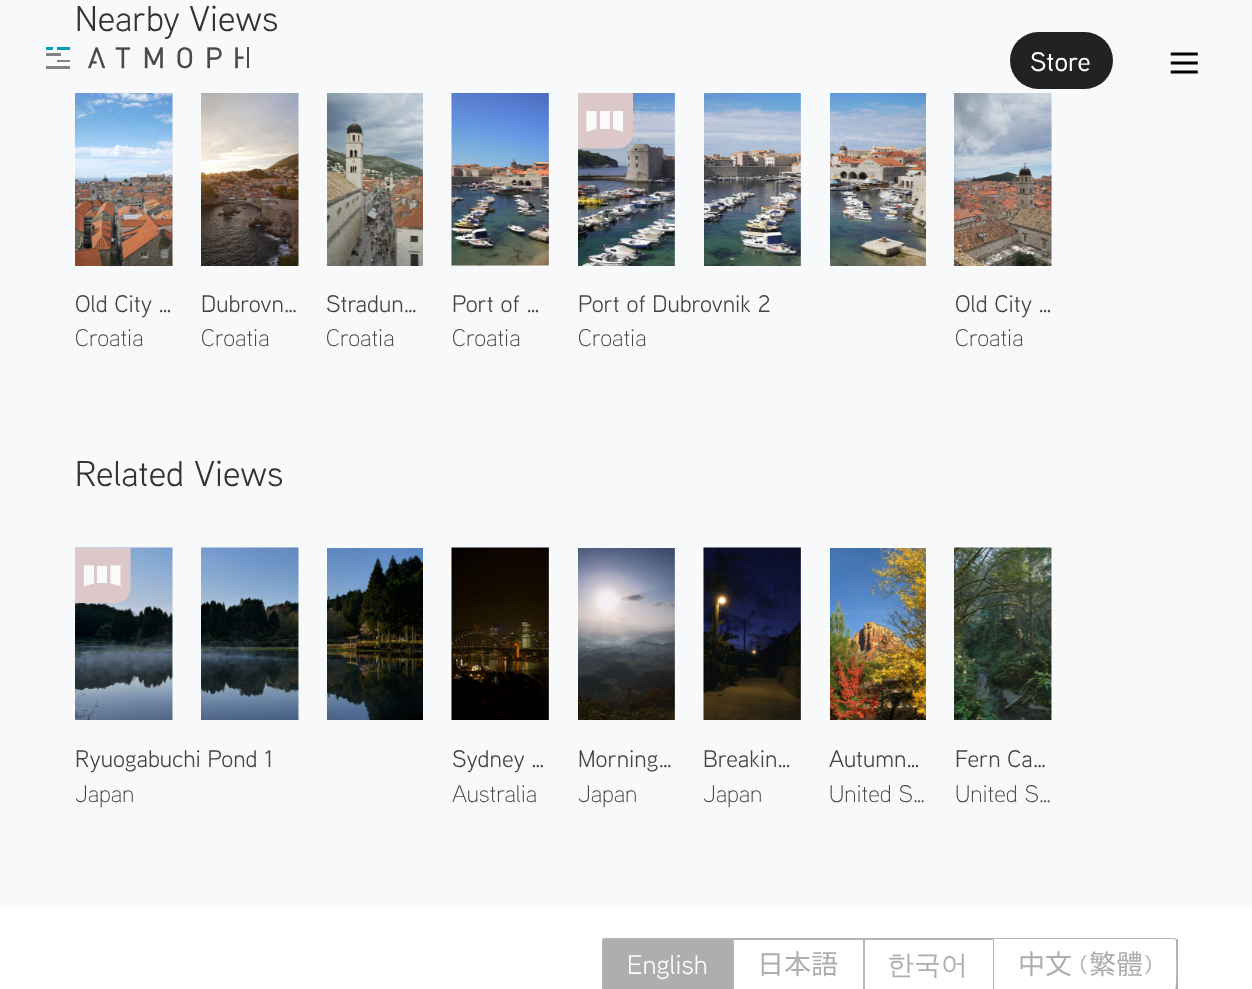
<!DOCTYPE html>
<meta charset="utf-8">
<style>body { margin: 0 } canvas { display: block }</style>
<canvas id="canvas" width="1252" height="989"></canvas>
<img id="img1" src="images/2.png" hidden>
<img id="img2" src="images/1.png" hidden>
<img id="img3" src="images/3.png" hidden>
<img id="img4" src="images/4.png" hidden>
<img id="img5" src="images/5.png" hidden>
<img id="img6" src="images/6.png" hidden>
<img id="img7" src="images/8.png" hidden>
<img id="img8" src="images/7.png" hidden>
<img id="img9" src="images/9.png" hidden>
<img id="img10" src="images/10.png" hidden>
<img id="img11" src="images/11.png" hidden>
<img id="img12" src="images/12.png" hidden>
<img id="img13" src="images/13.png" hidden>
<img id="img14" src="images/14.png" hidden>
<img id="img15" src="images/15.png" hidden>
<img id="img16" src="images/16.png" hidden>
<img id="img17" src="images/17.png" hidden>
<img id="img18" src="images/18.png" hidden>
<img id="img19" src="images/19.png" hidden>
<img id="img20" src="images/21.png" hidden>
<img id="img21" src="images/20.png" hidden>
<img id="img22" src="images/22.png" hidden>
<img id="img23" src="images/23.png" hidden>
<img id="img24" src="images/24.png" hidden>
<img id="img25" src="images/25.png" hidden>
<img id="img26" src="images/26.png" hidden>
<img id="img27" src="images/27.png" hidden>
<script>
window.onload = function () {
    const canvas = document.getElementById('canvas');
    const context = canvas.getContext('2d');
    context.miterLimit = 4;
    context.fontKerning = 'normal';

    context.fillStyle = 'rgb(255, 255, 255)';
    context.fillRect(0, 0, 1252, 989);
    context.fillStyle = 'rgb(248, 249, 250)';
    context.fillRect(0, 0, 1252, 908);
    context.drawImage(document.getElementById('img1'), 172, 93, 1, 173);
    context.drawImage(document.getElementById('img2'), 75, 93, 98, 173);
    context.drawImage(document.getElementById('img1'), 298, 93, 1, 173);
    context.drawImage(document.getElementById('img3'), 201, 93, 98, 173);
    context.drawImage(document.getElementById('img4'), 327, 93, 96, 173);
    context.drawImage(document.getElementById('img5'), 451, 93, 98, 173);
    context.drawImage(document.getElementById('img6'), 451, 93, 98, 173);
    context.drawImage(document.getElementById('img7'), 674, 93, 1, 173);
    context.drawImage(document.getElementById('img8'), 578, 93, 97, 173);
    context.drawImage(document.getElementById('img7'), 800, 93, 1, 173);
    context.drawImage(document.getElementById('img9'), 704, 93, 97, 173);
    context.drawImage(document.getElementById('img10'), 830, 93, 96, 173);
    context.drawImage(document.getElementById('img11'), 578, 93, 55, 56);
    context.drawImage(document.getElementById('img1'), 1051, 93, 1, 173);
    context.drawImage(document.getElementById('img12'), 954, 93, 98, 173);
    context.drawImage(document.getElementById('img13'), 75, 547, 98, 173);
    context.drawImage(document.getElementById('img14'), 75, 547, 98, 173);
    context.drawImage(document.getElementById('img13'), 201, 547, 98, 173);
    context.drawImage(document.getElementById('img15'), 201, 547, 98, 173);
    context.drawImage(document.getElementById('img16'), 327, 548, 96, 172);
    context.drawImage(document.getElementById('img17'), 75, 548, 56, 55);
    context.drawImage(document.getElementById('img18'), 451, 547, 98, 173);
    context.drawImage(document.getElementById('img19'), 451, 547, 98, 173);
    context.drawImage(document.getElementById('img20'), 674, 548, 1, 172);
    context.drawImage(document.getElementById('img21'), 578, 548, 97, 172);
    context.drawImage(document.getElementById('img18'), 703, 547, 98, 173);
    context.drawImage(document.getElementById('img22'), 703, 547, 98, 173);
    context.drawImage(document.getElementById('img23'), 830, 548, 96, 172);
    context.drawImage(document.getElementById('img24'), 954, 547, 98, 173);
    context.drawImage(document.getElementById('img25'), 954, 547, 98, 173);
    context.drawImage(document.getElementById('img26'), 46, 47, 203, 22);
    context.fillStyle = 'rgb(34, 34, 34)';
    context.beginPath();
    context.roundRect(1010, 32, 103, 57, 28.5);
    context.fill();
    context.drawImage(document.getElementById('img27'), 1170, 52, 28, 22);
    context.fillStyle = 'rgb(174, 174, 174)';
    context.beginPath();
    context.moveTo(605, 938);
    context.lineTo(732, 938);
    context.lineTo(732, 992);
    context.lineTo(605, 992);
    context.bezierCurveTo(603.5, 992, 602, 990.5, 602, 989);
    context.lineTo(602, 941);
    context.bezierCurveTo(602, 939.5, 603.5, 938, 605, 938);
    context.closePath();
    context.fill();
    context.fillStyle = 'rgb(181, 181, 181)';
    context.fillRect(603, 938, 390, 2);
    context.fillRect(602, 939, 2, 50);
    context.fillRect(732, 938, 2, 51);
    context.fillRect(863, 938, 2, 51);
    context.beginPath();
    context.moveTo(1176, 939);
    context.lineTo(1174, 938);
    context.lineTo(994, 938);
    context.lineTo(994, 939);
    context.lineTo(1174, 939);
    context.lineTo(1175, 940);
    context.closePath();
    context.fill();
    context.fillStyle = 'rgb(174, 174, 174)';
    context.beginPath();
    context.moveTo(1178, 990);
    context.lineTo(1177, 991);
    context.lineTo(1175, 989);
    context.bezierCurveTo(1177, 988, 1176, 946, 1176, 940);
    context.lineTo(1175, 940);
    context.lineTo(1176, 939);
    context.lineTo(1178, 939);
    context.closePath();
    context.fill();
    context.fillStyle = 'rgb(181, 181, 181)';
    context.beginPath();
    context.moveTo(994, 939);
    context.lineTo(993, 938);
    context.lineTo(993, 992);
    context.lineTo(994, 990);
    context.closePath();
    context.fill();
    context.font = '36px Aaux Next';
    context.fillStyle = 'rgb(51, 51, 51)';
    context.fillText('Nearby Views', 75, 31);
    context.font = '24px Aaux Next';
    context.fillStyle = 'rgb(67, 67, 67)';
    context.fillText('Old City …', 75, 312);
    context.font = '300 24px Aaux Next';
    context.fillText('Croatia', 75, 346);
    context.font = '24px Aaux Next';
    context.fillText('Dubrovn…', 201, 312);
    context.font = '300 24px Aaux Next';
    context.fillText('Croatia', 201, 346);
    context.font = '24px Aaux Next';
    context.fillText('Stradun…', 326, 312);
    context.font = '300 24px Aaux Next';
    context.fillText('Croatia', 326, 346);
    context.font = '24px Aaux Next';
    context.fillText('Port of …', 452, 312);
    context.font = '300 24px Aaux Next';
    context.fillText('Croatia', 452, 346);
    context.font = '24px Aaux Next';
    context.fillText('Port of Dubrovnik 2', 578, 312);
    context.font = '300 24px Aaux Next';
    context.fillText('Croatia', 578, 346);
    context.font = '24px Aaux Next';
    context.fillText('Old City …', 955, 312);
    context.font = '300 24px Aaux Next';
    context.fillText('Croatia', 955, 346);
    context.font = '36px Aaux Next';
    context.fillStyle = 'rgb(51, 51, 51)';
    context.fillText('Related Views', 75, 486);
    context.font = '24px Aaux Next';
    context.fillStyle = 'rgb(67, 67, 67)';
    context.fillText('Ryuogabuchi Pond 1', 75, 767);
    context.font = '300 24px Aaux Next';
    context.fillText('Japan', 75, 802);
    context.font = '24px Aaux Next';
    context.fillText('Sydney …', 452, 767);
    context.font = '300 24px Aaux Next';
    context.fillText('Australia', 452, 802);
    context.font = '24px Aaux Next';
    context.fillText('Morning…', 578, 767);
    context.font = '300 24px Aaux Next';
    context.fillText('Japan', 578, 802);
    context.font = '24px Aaux Next';
    context.fillText('Breakin…', 703, 767);
    context.font = '300 24px Aaux Next';
    context.fillText('Japan', 703, 802);
    context.font = '24px Aaux Next';
    context.fillText('Autumn…', 829, 767);
    context.font = '300 24px Aaux Next';
    context.fillText('United S…', 829, 802);
    context.font = '24px Aaux Next';
    context.fillText('Fern Ca…', 955, 767);
    context.font = '300 24px Aaux Next';
    context.fillText('United S…', 955, 802);
    context.font = '500 27px Aaux Next';
    context.fillStyle = 'rgb(255, 255, 255)';
    context.fillText('Store', 1030, 71);
    context.font = '27px Aaux Next';
    context.fillText('English', 627, 974);
    context.font = '27px Noto Sans JP';
    context.fillStyle = 'rgb(174, 174, 174)';
    context.fillText('日本語', 757, 974);
    context.font = '500 27px WenQuanYi Zen Hei';
    context.fillText('한국어', 887, 974);
    context.font = '27px Noto Sans JP';
    context.fillText('中文', 1018, 974);
    context.font = '27px Aaux Next';
    context.fillText('(', 1079, 974);
    context.font = '27px Noto Sans JP';
    context.fillText('繁體', 1089, 974);
    context.font = '27px Aaux Next';
    context.fillText(')', 1143, 974);
};
</script>
